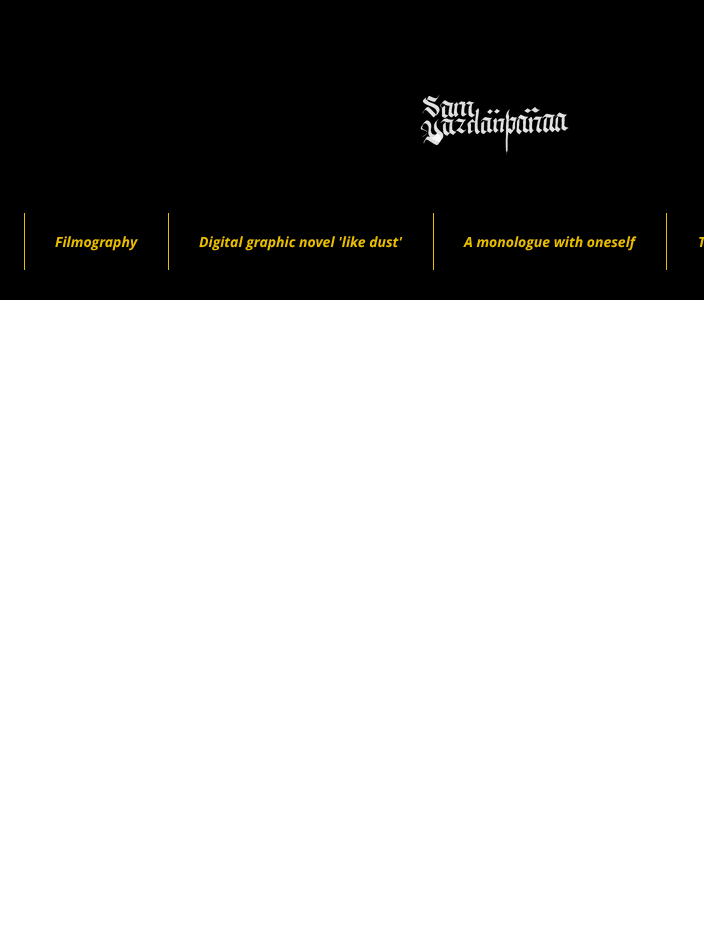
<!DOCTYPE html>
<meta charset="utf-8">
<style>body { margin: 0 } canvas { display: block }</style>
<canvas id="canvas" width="704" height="945"></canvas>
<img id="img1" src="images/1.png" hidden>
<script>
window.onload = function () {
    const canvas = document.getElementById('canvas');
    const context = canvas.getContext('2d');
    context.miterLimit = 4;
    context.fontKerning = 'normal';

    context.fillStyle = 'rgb(255, 255, 255)';
    context.fillRect(0, 0, 704, 945);
    context.fillStyle = 'rgb(0, 0, 0)';
    context.fillRect(0, 0, 704, 300);
    context.drawImage(document.getElementById('img1'), 420, 94, 149, 61);
    context.fillStyle = 'rgb(233, 189, 0)';
    context.fillRect(24, 213, 1, 57);
    context.fillRect(168, 213, 1, 57);
    context.fillRect(433, 213, 1, 57);
    context.fillRect(666, 213, 1, 57);
    context.font = 'italic bold 14px Open Sans';
    context.fillText('Filmography', 55, 247);
    context.fillText('Digital graphic novel \'like dust\'', 199, 247);
    context.fillText('A monologue with oneself', 464, 247);
    context.fillText('T', 698, 247);
};
</script>
